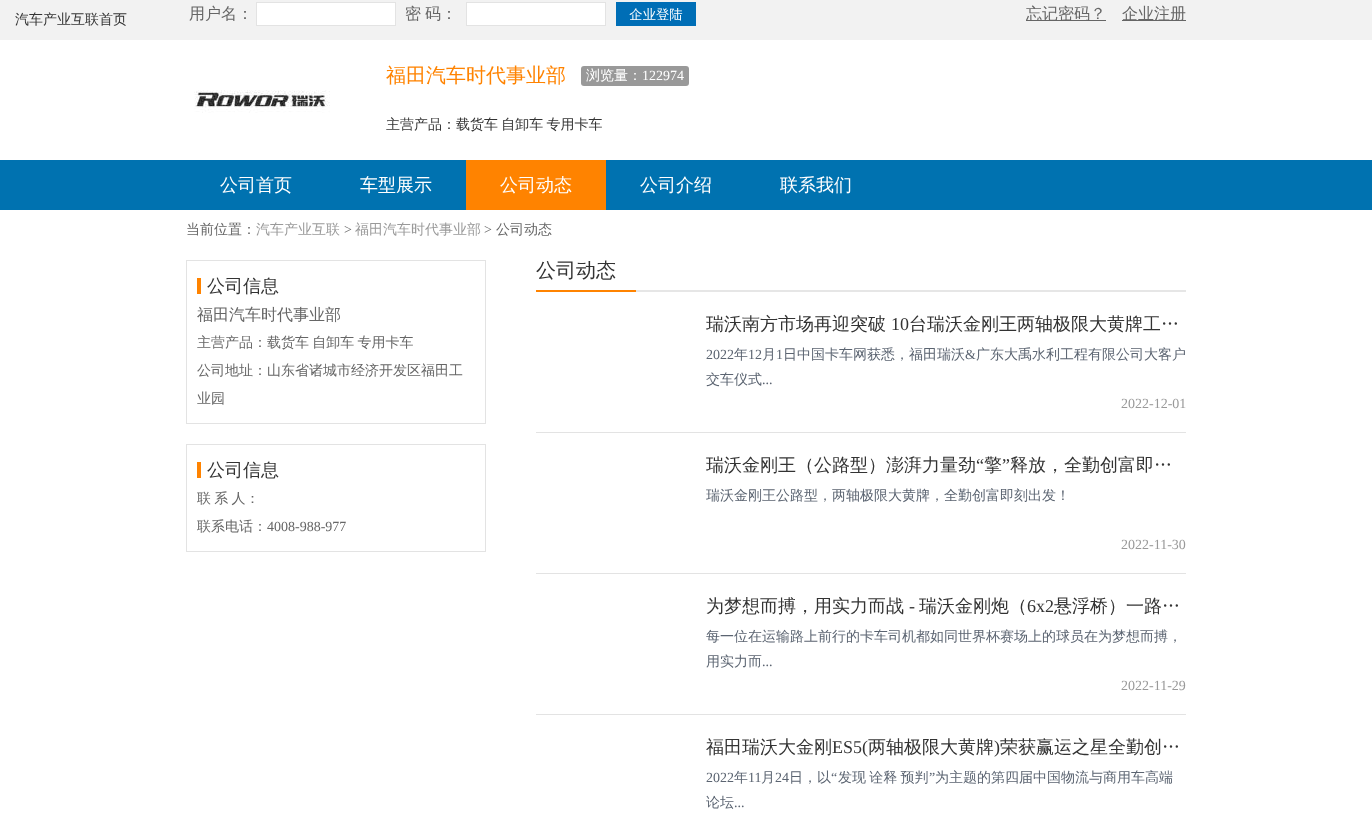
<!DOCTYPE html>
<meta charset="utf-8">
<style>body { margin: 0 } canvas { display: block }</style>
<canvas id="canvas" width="1372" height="814"></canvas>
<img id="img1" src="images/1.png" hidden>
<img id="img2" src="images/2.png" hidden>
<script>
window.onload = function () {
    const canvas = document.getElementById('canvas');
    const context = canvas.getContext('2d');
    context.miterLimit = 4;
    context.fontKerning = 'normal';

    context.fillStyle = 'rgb(255, 255, 255)';
    context.fillRect(0, 0, 1372, 814);
    context.fillStyle = 'rgb(242, 242, 242)';
    context.fillRect(0, 0, 1372, 40);
    context.drawImage(document.getElementById('img1'), 189, 2, 997, 24);
    context.drawImage(document.getElementById('img2'), 194, 90, 136, 23);
    context.fillStyle = 'rgb(153, 153, 153)';
    context.beginPath();
    context.roundRect(581, 66, 108, 20, 3);
    context.fill();
    context.fillStyle = 'rgb(0, 114, 176)';
    context.fillRect(0, 160, 1372, 50);
    context.fillStyle = 'rgb(255, 131, 0)';
    context.fillRect(466, 160, 140, 50);
    context.strokeStyle = 'rgb(227, 227, 227)';
    context.strokeRect(186.5, 260.5, 299, 163);
    context.fillRect(197, 278, 4, 16);
    context.strokeRect(186.5, 444.5, 299, 107);
    context.fillRect(197, 462, 4, 16);
    context.fillStyle = 'rgb(230, 230, 230)';
    context.fillRect(636, 290, 550, 2);
    context.fillStyle = 'rgb(255, 131, 0)';
    context.fillRect(536, 290, 100, 2);
    context.fillStyle = 'rgb(227, 227, 227)';
    context.fillRect(536, 432, 650, 1);
    context.fillRect(536, 573, 650, 1);
    context.fillRect(536, 714, 650, 1);
    context.font = '500 14px WenQuanYi Zen Hei';
    context.fillStyle = 'rgb(51, 51, 51)';
    context.fillText('汽车产业互联首页', 15, 24);
    context.font = '500 20px WenQuanYi Zen Hei';
    context.fillStyle = 'rgb(255, 131, 0)';
    context.fillText('福田汽车时代事业部', 386, 82);
    context.font = '500 14px WenQuanYi Zen Hei';
    context.fillStyle = 'rgb(255, 255, 255)';
    context.fillText('浏览量：', 586, 80);
    context.font = '14px Liberation Serif';
    context.fillText('122974', 642, 80);
    context.wordSpacing = '-1px';
    context.font = '500 14px WenQuanYi Zen Hei';
    context.fillStyle = 'rgb(51, 51, 51)';
    context.fillText('主营产品：载货车 自卸车 专用卡车', 386, 129);
    context.wordSpacing = '0px';
    context.font = '500 18px WenQuanYi Zen Hei';
    context.fillStyle = 'rgb(255, 255, 255)';
    context.fillText('公司首页', 220, 191);
    context.fillText('车型展示', 360, 191);
    context.fillText('公司动态', 500, 191);
    context.fillText('公司介绍', 640, 191);
    context.fillText('联系我们', 780, 191);
    context.font = '500 14px WenQuanYi Zen Hei';
    context.fillStyle = 'rgb(102, 102, 102)';
    context.fillText('当前位置：', 186, 234);
    context.fillStyle = 'rgb(153, 153, 153)';
    context.fillText('汽车产业互联', 256, 234);
    context.font = '14px Liberation Serif';
    context.fillStyle = 'rgb(102, 102, 102)';
    context.fillText('>', 344, 234);
    context.font = '500 14px WenQuanYi Zen Hei';
    context.fillStyle = 'rgb(153, 153, 153)';
    context.fillText('福田汽车时代事业部', 355, 234);
    context.font = '14px Liberation Serif';
    context.fillStyle = 'rgb(102, 102, 102)';
    context.fillText('>', 484, 234);
    context.font = '500 14px WenQuanYi Zen Hei';
    context.fillText('公司动态', 496, 234);
    context.font = '500 18px WenQuanYi Zen Hei';
    context.fillStyle = 'rgb(51, 51, 51)';
    context.fillText('公司信息', 207, 292);
    context.font = '500 16px WenQuanYi Zen Hei';
    context.fillStyle = 'rgb(102, 102, 102)';
    context.fillText('福田汽车时代事业部', 197, 320);
    context.wordSpacing = '-1px';
    context.font = '500 14px WenQuanYi Zen Hei';
    context.fillText('主营产品：载货车 自卸车 专用卡车', 197, 347);
    context.wordSpacing = '0px';
    context.fillText('公司地址：山东省诸城市经济开发区福田工', 197, 375);
    context.fillText('业园', 197, 403);
    context.font = '500 18px WenQuanYi Zen Hei';
    context.fillStyle = 'rgb(51, 51, 51)';
    context.fillText('公司信息', 207, 476);
    context.wordSpacing = '-1px';
    context.font = '500 14px WenQuanYi Zen Hei';
    context.fillStyle = 'rgb(102, 102, 102)';
    context.fillText('联 系 人：', 197, 503);
    context.wordSpacing = '0px';
    context.fillText('联系电话：', 197, 531);
    context.font = '14px Liberation Serif';
    context.fillText('4008-988-977', 267, 531);
    context.font = '500 20px WenQuanYi Zen Hei';
    context.fillStyle = 'rgb(51, 51, 51)';
    context.fillText('公司动态', 536, 277);
    context.font = '500 18px WenQuanYi Zen Hei';
    context.fillText('瑞沃南方市场再迎突破', 706, 330);
    context.font = '18px Liberation Serif';
    context.fillText('10', 891, 330);
    context.font = '500 18px WenQuanYi Zen Hei';
    context.fillText('台瑞沃金刚王两轴极限大黄牌工…', 909, 330);
    context.font = '14px Liberation Serif';
    context.fillStyle = 'rgb(91, 100, 113)';
    context.fillText('2022', 706, 359);
    context.font = '500 14px WenQuanYi Zen Hei';
    context.fillText('年', 734, 359);
    context.font = '14px Liberation Serif';
    context.fillText('12', 748, 359);
    context.font = '500 14px WenQuanYi Zen Hei';
    context.fillText('月', 762, 359);
    context.font = '14px Liberation Serif';
    context.fillText('1', 776, 359);
    context.font = '500 14px WenQuanYi Zen Hei';
    context.fillText('日中国卡车网获悉，福田瑞沃', 783, 359);
    context.font = '14px Liberation Serif';
    context.fillText('&', 965, 359);
    context.font = '500 14px WenQuanYi Zen Hei';
    context.fillText('广东大禹水利工程有限公司大客户', 976, 359);
    context.fillText('交车仪式', 706, 384);
    context.font = '14px Liberation Serif';
    context.fillText('...', 762, 384);
    context.fillStyle = 'rgb(153, 153, 153)';
    context.fillText('2022-12-01', 1121, 408);
    context.font = '500 18px WenQuanYi Zen Hei';
    context.fillStyle = 'rgb(51, 51, 51)';
    context.fillText('瑞沃金刚王（公路型）澎湃力量劲', 706, 471);
    context.font = '18px Liberation Serif';
    context.fillText('“', 976, 471);
    context.font = '500 18px WenQuanYi Zen Hei';
    context.fillText('擎', 984, 471);
    context.font = '18px Liberation Serif';
    context.fillText('”', 1002, 471);
    context.font = '500 18px WenQuanYi Zen Hei';
    context.fillText('释放，全勤创富即…', 1010, 471);
    context.font = '500 14px WenQuanYi Zen Hei';
    context.fillStyle = 'rgb(91, 100, 113)';
    context.fillText('瑞沃金刚王公路型，两轴极限大黄牌，全勤创富即刻出发！', 706, 500);
    context.font = '14px Liberation Serif';
    context.fillStyle = 'rgb(153, 153, 153)';
    context.fillText('2022-11-30', 1121, 549);
    context.font = '500 18px WenQuanYi Zen Hei';
    context.fillStyle = 'rgb(51, 51, 51)';
    context.fillText('为梦想而搏，用实力而战', 706, 612);
    context.font = '18px Liberation Serif';
    context.fillText('-', 909, 612);
    context.font = '500 18px WenQuanYi Zen Hei';
    context.fillText('瑞沃金刚炮（', 919, 612);
    context.font = '18px Liberation Serif';
    context.fillText('6x2', 1027, 612);
    context.font = '500 18px WenQuanYi Zen Hei';
    context.fillText('悬浮桥）一路…', 1054, 612);
    context.font = '500 14px WenQuanYi Zen Hei';
    context.fillStyle = 'rgb(91, 100, 113)';
    context.fillText('每一位在运输路上前行的卡车司机都如同世界杯赛场上的球员在为梦想而搏，', 706, 641);
    context.fillText('用实力而', 706, 666);
    context.font = '14px Liberation Serif';
    context.fillText('...', 762, 666);
    context.fillStyle = 'rgb(153, 153, 153)';
    context.fillText('2022-11-29', 1121, 690);
    context.font = '500 18px WenQuanYi Zen Hei';
    context.fillStyle = 'rgb(51, 51, 51)';
    context.fillText('福田瑞沃大金刚', 706, 753);
    context.font = '18px Liberation Serif';
    context.fillText('ES5(', 832, 753);
    context.font = '500 18px WenQuanYi Zen Hei';
    context.fillText('两轴极限大黄牌', 868, 753);
    context.font = '18px Liberation Serif';
    context.fillText(')', 994, 753);
    context.font = '500 18px WenQuanYi Zen Hei';
    context.fillText('荣获赢运之星全勤创…', 1000, 753);
    context.font = '14px Liberation Serif';
    context.fillStyle = 'rgb(91, 100, 113)';
    context.fillText('2022', 706, 782);
    context.font = '500 14px WenQuanYi Zen Hei';
    context.fillText('年', 734, 782);
    context.font = '14px Liberation Serif';
    context.fillText('11', 748, 782);
    context.font = '500 14px WenQuanYi Zen Hei';
    context.fillText('月', 761, 782);
    context.font = '14px Liberation Serif';
    context.fillText('24', 775, 782);
    context.font = '500 14px WenQuanYi Zen Hei';
    context.fillText('日，以', 789, 782);
    context.font = '14px Liberation Serif';
    context.fillText('“', 831, 782);
    context.wordSpacing = '-1px';
    context.font = '500 14px WenQuanYi Zen Hei';
    context.fillText('发现 诠释 预判', 838, 782);
    context.wordSpacing = '0px';
    context.font = '14px Liberation Serif';
    context.fillText('”', 929, 782);
    context.font = '500 14px WenQuanYi Zen Hei';
    context.fillText('为主题的第四届中国物流与商用车高端', 935, 782);
    context.fillText('论坛', 706, 807);
    context.font = '14px Liberation Serif';
    context.fillText('...', 734, 807);
};
</script>
